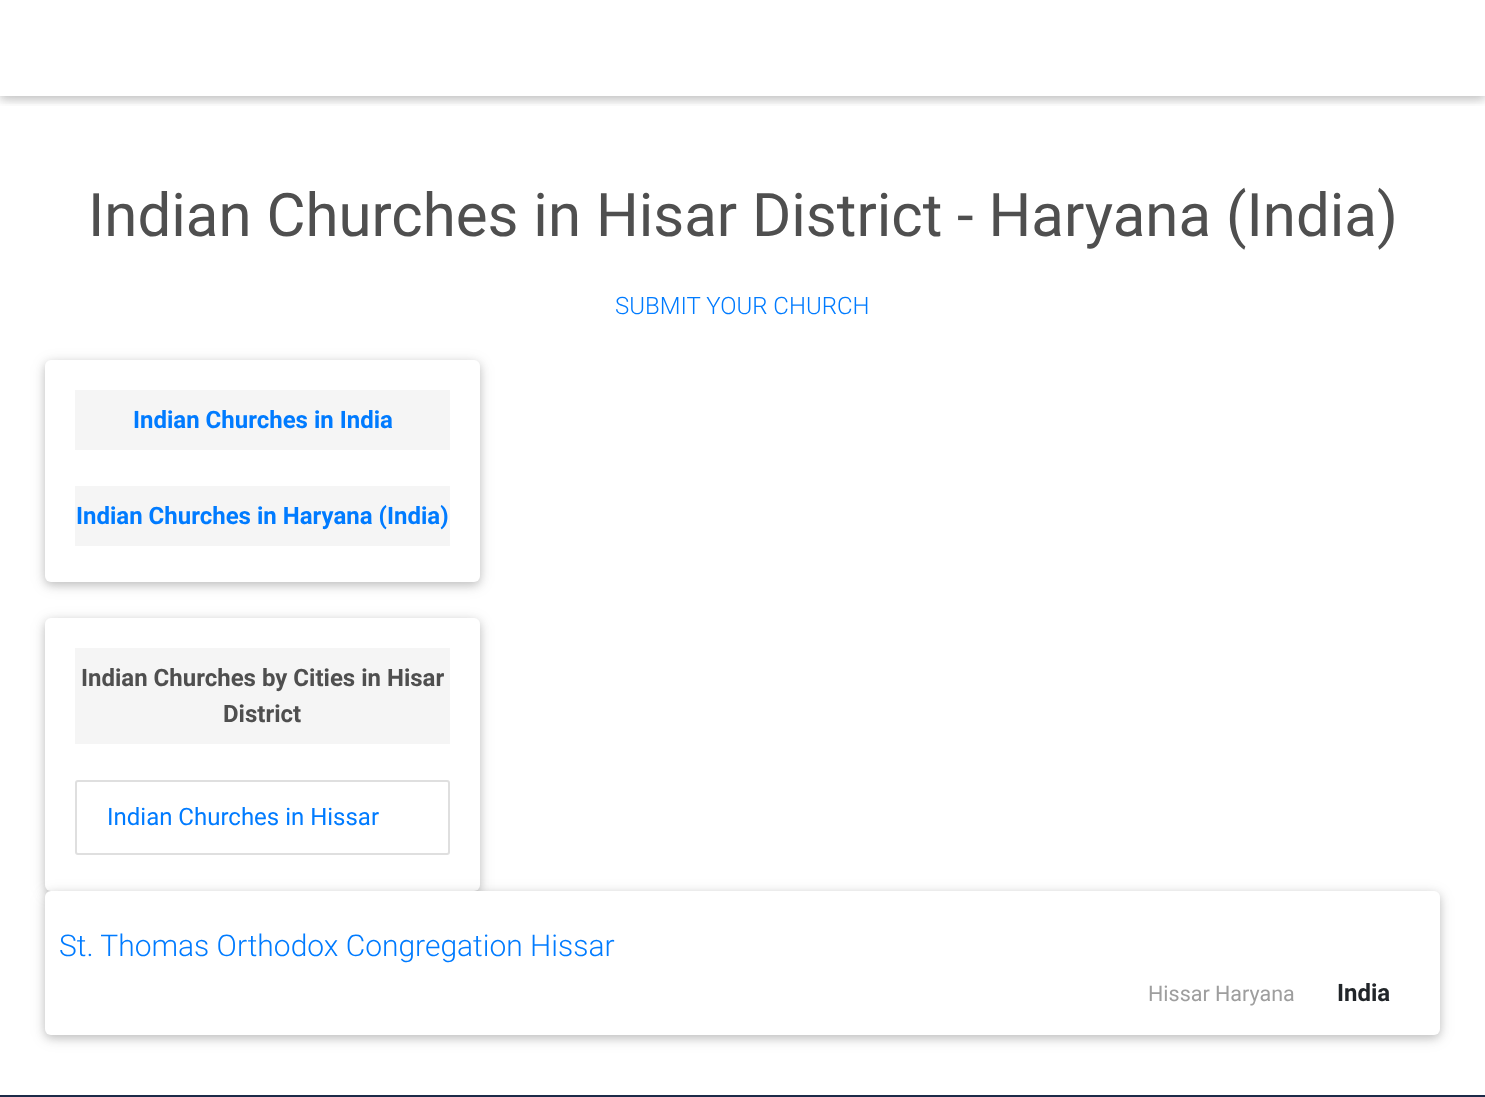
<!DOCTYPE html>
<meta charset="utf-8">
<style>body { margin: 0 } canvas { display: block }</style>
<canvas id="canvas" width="1485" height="1097"></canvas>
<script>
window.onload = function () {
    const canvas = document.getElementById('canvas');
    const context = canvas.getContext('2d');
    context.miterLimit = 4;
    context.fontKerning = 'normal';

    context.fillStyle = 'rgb(255, 255, 255)';
    context.fillRect(0, 0, 1485, 1097);
    context.save();
    context.beginPath();
    context.rect(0, 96, 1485, 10);
    context.clip();
    context.fillStyle = 'rgba(0, 0, 0, 0.12)';
    context.filter = 'blur(7.5px)';
    context.beginPath();
    context.rect(0, 3, 1485, 96);
    context.fill();
    context.filter = 'none';
    context.restore();
    context.save();
    context.beginPath();
    context.rect(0, 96, 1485, 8);
    context.clip();
    context.fillStyle = 'rgba(0, 0, 0, 0.16)';
    context.filter = 'blur(4px)';
    context.beginPath();
    context.rect(0, 3, 1485, 96);
    context.fill();
    context.filter = 'none';
    context.restore();
    context.fillStyle = 'rgba(0, 0, 0, 0.12)';
    context.filter = 'blur(7.5px)';
    context.beginPath();
    context.roundRect(45, 363, 435, 222, 6);
    context.fill();
    context.filter = 'none';
    context.fillStyle = 'rgba(0, 0, 0, 0.16)';
    context.filter = 'blur(4px)';
    context.beginPath();
    context.roundRect(45, 363, 435, 222, 6);
    context.fill();
    context.filter = 'none';
    context.fillStyle = 'rgb(255, 255, 255)';
    context.beginPath();
    context.roundRect(45, 360, 435, 222, 6);
    context.fill();
    context.fillStyle = 'rgb(245, 245, 245)';
    context.fillRect(75, 390, 375, 60);
    context.fillRect(75, 486, 375, 60);
    context.fillStyle = 'rgba(0, 0, 0, 0.12)';
    context.filter = 'blur(7.5px)';
    context.beginPath();
    context.roundRect(45, 621, 435, 273, 6);
    context.fill();
    context.filter = 'none';
    context.fillStyle = 'rgba(0, 0, 0, 0.16)';
    context.filter = 'blur(4px)';
    context.beginPath();
    context.roundRect(45, 621, 435, 273, 6);
    context.fill();
    context.filter = 'none';
    context.fillStyle = 'rgb(255, 255, 255)';
    context.beginPath();
    context.roundRect(45, 618, 435, 273, 6);
    context.fill();
    context.fillStyle = 'rgb(245, 245, 245)';
    context.fillRect(75, 648, 375, 96);
    context.beginPath();
    context.roundRect(76, 781, 373, 73, 2);
    context.strokeStyle = 'rgb(223, 223, 223)';
    context.lineWidth = 2;
    context.stroke();
    context.fillStyle = 'rgba(0, 0, 0, 0.12)';
    context.filter = 'blur(7.5px)';
    context.beginPath();
    context.roundRect(45, 894, 1395, 144, 6);
    context.fill();
    context.filter = 'none';
    context.fillStyle = 'rgba(0, 0, 0, 0.16)';
    context.filter = 'blur(4px)';
    context.beginPath();
    context.roundRect(45, 894, 1395, 144, 6);
    context.fill();
    context.filter = 'none';
    context.fillStyle = 'rgb(255, 255, 255)';
    context.beginPath();
    context.roundRect(45, 891, 1395, 144, 6);
    context.fill();
    context.fillStyle = 'rgb(28, 42, 72)';
    context.fillRect(0, 1095, 1485, 2);
    context.font = '60px Roboto';
    context.fillStyle = 'rgb(79, 79, 79)';
    context.fillText('Indian Churches in Hisar District - Haryana (India)', 88, 236);
    context.font = '300 24px Roboto';
    context.fillStyle = 'rgb(0, 123, 255)';
    context.fillText('SUBMIT YOUR CHURCH', 615, 314);
    context.font = 'bold 24px Roboto';
    context.fillText('Indian Churches in India', 133, 428);
    context.fillText('Indian Churches in Haryana (India)', 76, 524);
    context.fillStyle = 'rgb(79, 79, 79)';
    context.fillText('Indian Churches by Cities in Hisar', 81, 686);
    context.fillText('District', 223, 722);
    context.font = '24px Roboto';
    context.fillStyle = 'rgb(0, 123, 255)';
    context.fillText('Indian Churches in Hissar', 107, 825);
    context.font = '300 30px Roboto';
    context.fillText('St. Thomas Orthodox Congregation Hissar', 59, 956);
    context.font = '21.5px Roboto';
    context.fillStyle = 'rgb(158, 158, 158)';
    context.fillText('Hissar Haryana', 1148, 1001);
    context.font = 'bold 24px Roboto';
    context.fillStyle = 'rgb(33, 37, 41)';
    context.fillText('India', 1337, 1001);
};
</script>
